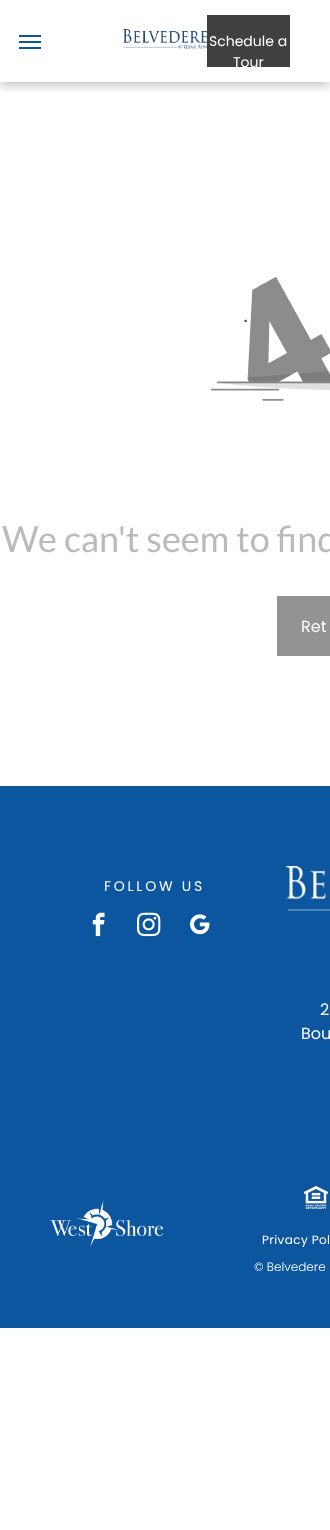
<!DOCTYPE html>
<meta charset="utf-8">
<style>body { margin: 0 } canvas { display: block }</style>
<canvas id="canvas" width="330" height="1530"></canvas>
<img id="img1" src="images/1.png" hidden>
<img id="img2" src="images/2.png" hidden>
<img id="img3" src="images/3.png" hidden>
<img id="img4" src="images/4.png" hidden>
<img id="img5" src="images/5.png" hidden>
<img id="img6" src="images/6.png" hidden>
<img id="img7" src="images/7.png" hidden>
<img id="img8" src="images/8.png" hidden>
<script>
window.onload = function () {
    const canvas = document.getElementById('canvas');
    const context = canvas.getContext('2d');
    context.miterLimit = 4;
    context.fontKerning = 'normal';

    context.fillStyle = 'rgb(255, 255, 255)';
    context.fillRect(0, 0, 330, 1530);
    context.save();
    context.beginPath();
    context.rect(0, 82, 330, 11);
    context.clip();
    context.fillStyle = 'rgba(0, 0, 0, 0.25)';
    context.filter = 'blur(5.5px)';
    context.beginPath();
    context.rect(0, 3, 330, 82);
    context.fill();
    context.filter = 'none';
    context.restore();
    context.fillStyle = 'rgb(12, 86, 160)';
    context.fillRect(19, 35, 22, 2);
    context.fillRect(19, 41, 22, 2);
    context.fillRect(19, 47, 22, 2);
    context.drawImage(document.getElementById('img1'), 123, 29, 84, 21);
    context.fillStyle = 'rgb(64, 64, 64)';
    context.fillRect(207, 15, 83, 52);
    context.drawImage(document.getElementById('img2'), 210, 277, 120, 124);
    context.fillStyle = 'rgb(147, 147, 147)';
    context.fillRect(277, 596, 53, 60);
    context.fillStyle = 'rgb(12, 86, 160)';
    context.fillRect(0, 786, 330, 542);
    context.drawImage(document.getElementById('img3'), 92, 912, 13, 25);
    context.drawImage(document.getElementById('img4'), 137, 912, 24, 25);
    context.drawImage(document.getElementById('img5'), 189, 914, 21, 21);
    context.drawImage(document.getElementById('img6'), 286, 866, 44, 45);
    context.drawImage(document.getElementById('img7'), 50, 1200, 113, 47);
    context.drawImage(document.getElementById('img8'), 304, 1186, 24, 23);
    context.font = '14px Poppins';
    context.fillStyle = 'rgb(255, 255, 255)';
    context.fillText('Schedule a', 209, 46);
    context.fillText('Tour', 233, 67);
    context.font = '36px Lato';
    context.fillStyle = 'rgb(186, 186, 186)';
    context.fillText('We can\'t seem to find', 2, 552);
    context.font = '16px Poppins';
    context.fillStyle = 'rgb(255, 255, 255)';
    context.fillText('Ret', 301, 632);
    context.letterSpacing = '2.75px';
    context.font = '14px Poppins';
    context.fillText('FOLLOW US', 104, 891);
    context.letterSpacing = '0px';
    context.font = '16px Poppins';
    context.fillText('2', 320, 1015);
    context.fillText('Bou', 301, 1039);
    context.letterSpacing = '0.4px';
    context.font = '12px Poppins';
    context.fillText('Privacy Pol', 262, 1244);
    context.letterSpacing = '0px';
    context.font = '300 12px Poppins';
    context.fillText('© Belvedere', 254, 1271);
};
</script>
